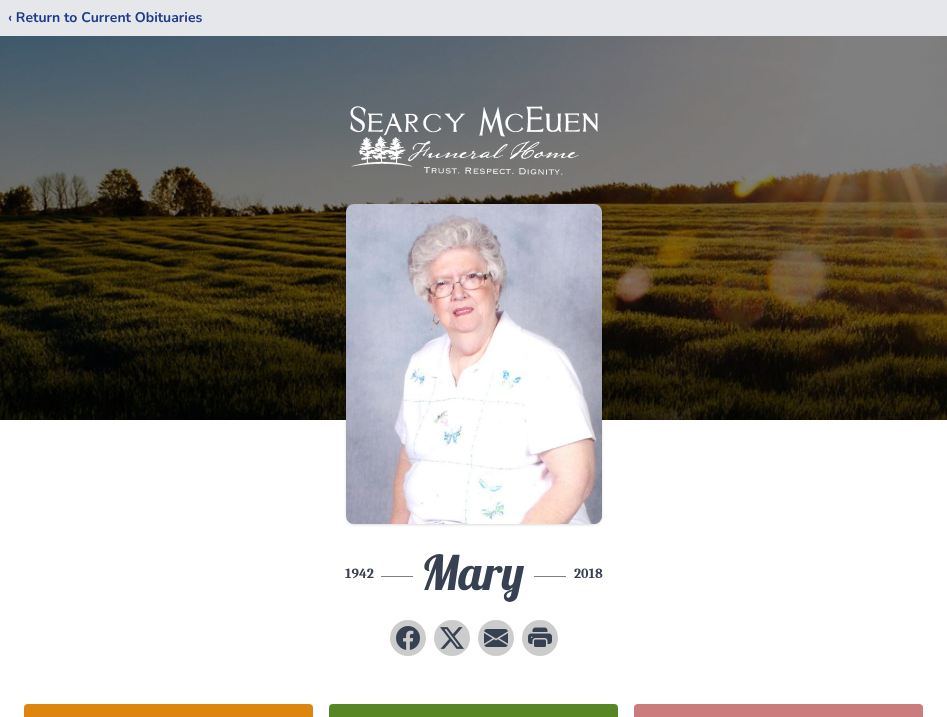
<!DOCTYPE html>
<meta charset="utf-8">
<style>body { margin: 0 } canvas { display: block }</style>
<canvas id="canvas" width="947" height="717"></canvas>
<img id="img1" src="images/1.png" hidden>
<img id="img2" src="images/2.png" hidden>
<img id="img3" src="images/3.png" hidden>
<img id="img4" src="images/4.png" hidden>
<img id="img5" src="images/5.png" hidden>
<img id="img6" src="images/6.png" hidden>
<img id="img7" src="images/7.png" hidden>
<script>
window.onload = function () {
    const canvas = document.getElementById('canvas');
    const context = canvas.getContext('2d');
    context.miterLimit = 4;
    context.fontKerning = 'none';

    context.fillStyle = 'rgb(255, 255, 255)';
    context.fillRect(0, 0, 947, 717);
    context.fillStyle = 'rgb(229, 231, 235)';
    context.fillRect(0, 0, 947, 36);
    context.drawImage(document.getElementById('img1'), 0, 36, 947, 384);
    context.drawImage(document.getElementById('img2'), 350, 106, 248, 69);
    context.fillStyle = 'rgba(0, 0, 0, 0.1)';
    context.filter = 'blur(1px)';
    context.beginPath();
    context.roundRect(347, 206, 254, 318, 7);
    context.fill();
    context.filter = 'none';
    context.filter = 'blur(1.5px)';
    context.beginPath();
    context.roundRect(346, 205, 256, 320, 8);
    context.fill();
    context.filter = 'none';
    context.drawImage(document.getElementById('img3'), 346, 204, 256, 320);
    context.fillStyle = 'rgb(128, 128, 128)';
    context.fillRect(381, 576, 32, 1);
    context.fillRect(534, 576, 32, 1);
    context.fillStyle = 'rgb(204, 204, 204)';
    context.beginPath();
    context.arc(408, 638, 18, 0, 2 * Math.PI);
    context.fill();
    context.drawImage(document.getElementById('img4'), 396, 626, 24, 24);
    context.beginPath();
    context.arc(452, 638, 18, 0, 2 * Math.PI);
    context.fill();
    context.drawImage(document.getElementById('img5'), 440, 627, 24, 22);
    context.beginPath();
    context.arc(496, 638, 18, 0, 2 * Math.PI);
    context.fill();
    context.drawImage(document.getElementById('img6'), 484, 629, 24, 18);
    context.beginPath();
    context.arc(540, 638, 18, 0, 2 * Math.PI);
    context.fill();
    context.drawImage(document.getElementById('img7'), 528, 627, 24, 20);
    context.fillStyle = 'rgb(220, 134, 13)';
    context.beginPath();
    context.roundRect(24, 704, 289, 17, 4);
    context.fill();
    context.fillStyle = 'rgb(88, 134, 36)';
    context.beginPath();
    context.roundRect(329, 704, 289, 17, 4);
    context.fill();
    context.fillStyle = 'rgb(203, 124, 124)';
    context.beginPath();
    context.roundRect(634, 704, 289, 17, 4);
    context.fill();
    context.font = 'bold 14px Nunito';
    context.fillStyle = 'rgb(30, 58, 138)';
    context.fillText('‹ Return to Current Obituaries', 8, 22);
    context.font = 'bold 14px Caladea';
    context.fillStyle = 'rgb(55, 65, 81)';
    context.fillText('1942', 345, 578);
    context.font = '48px Lobster';
    context.fillText('Mary', 421, 590);
    context.font = 'bold 14px Caladea';
    context.fillText('2018', 574, 578);
};
</script>
